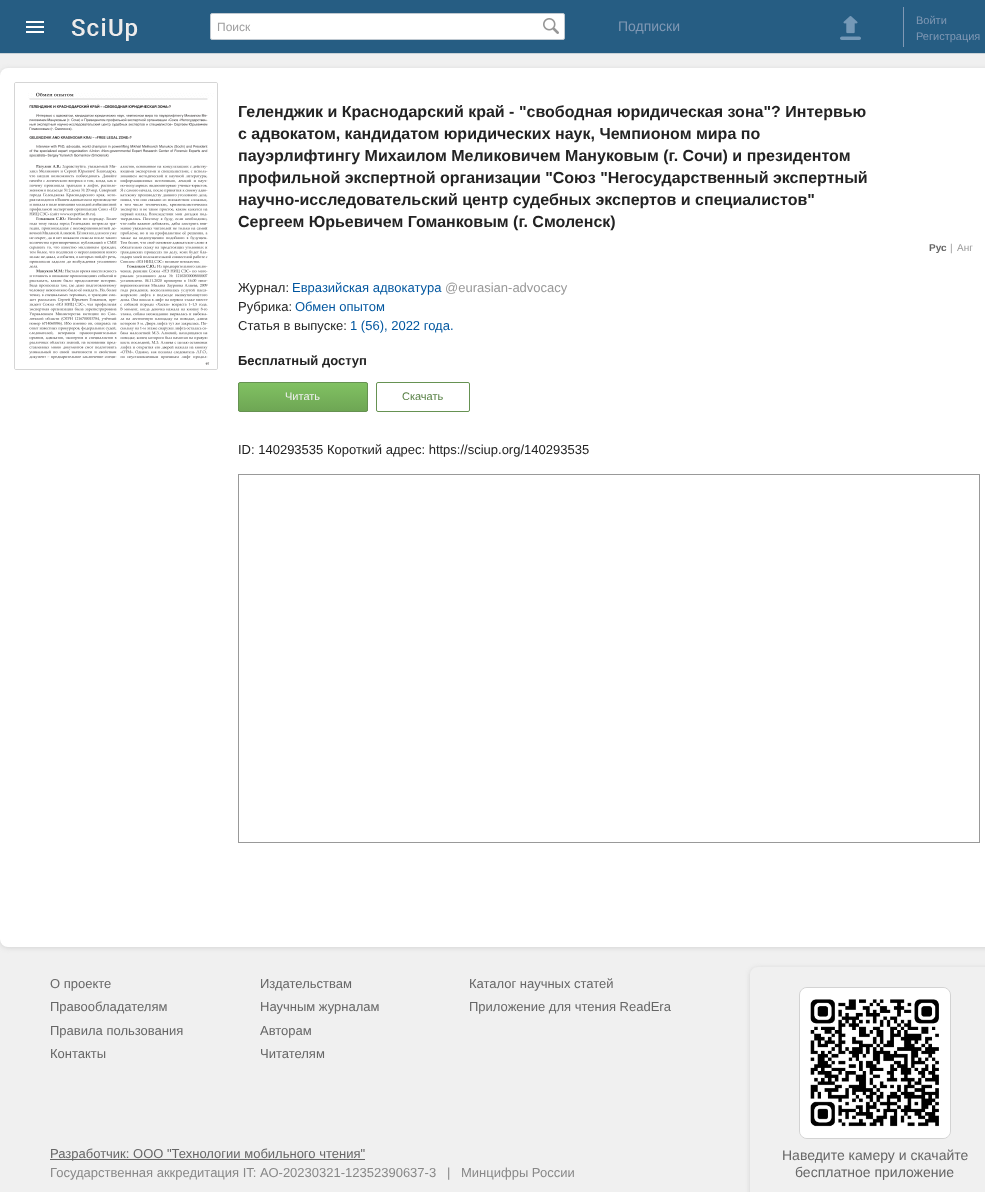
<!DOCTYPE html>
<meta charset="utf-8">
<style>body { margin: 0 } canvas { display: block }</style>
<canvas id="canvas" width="985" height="1192"></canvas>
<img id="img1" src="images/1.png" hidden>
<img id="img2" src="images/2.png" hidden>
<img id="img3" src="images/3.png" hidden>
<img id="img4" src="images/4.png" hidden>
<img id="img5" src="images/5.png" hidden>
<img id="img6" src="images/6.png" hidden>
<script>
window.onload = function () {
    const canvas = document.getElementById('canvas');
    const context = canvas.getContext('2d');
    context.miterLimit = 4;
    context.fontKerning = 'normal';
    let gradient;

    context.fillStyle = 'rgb(240, 240, 240)';
    context.fillRect(0, 0, 985, 1192);
    context.fillStyle = 'rgb(38, 93, 131)';
    context.fillRect(0, 0, 985, 53);
    context.fillStyle = 'rgb(201, 210, 215)';
    context.fillRect(0, 53, 985, 1);
    context.drawImage(document.getElementById('img1'), 26, 21, 18, 12);
    context.drawImage(document.getElementById('img2'), 71, 18, 67, 23);
    context.fillStyle = 'rgb(255, 255, 255)';
    context.beginPath();
    context.roundRect(210.5, 13.5, 354, 26, 1.5);
    context.fill();
    context.strokeStyle = 'rgb(192, 201, 209)';
    context.stroke();
    context.drawImage(document.getElementById('img3'), 543, 18, 16, 16);
    context.drawImage(document.getElementById('img4'), 840, 16, 21, 24);
    context.fillStyle = 'rgb(128, 152, 180)';
    context.fillRect(903, 7, 1, 40);
    context.fillStyle = 'rgb(212, 212, 212)';
    context.filter = 'blur(2.5px)';
    context.beginPath();
    context.roundRect(0, 69, 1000, 879, 8);
    context.fill();
    context.filter = 'none';
    context.fillStyle = 'rgb(255, 255, 255)';
    context.beginPath();
    context.roundRect(0, 68, 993, 879, 8);
    context.fill();
    context.beginPath();
    context.roundRect(14.5, 82.5, 203, 287, 1.5);
    context.strokeStyle = 'rgb(213, 213, 213)';
    context.stroke();
    context.drawImage(document.getElementById('img5'), 15, 83, 202, 286);
    context.save();
    context.beginPath();
    context.roundRect(238, 382, 130, 30, 2);
    context.clip();
    gradient = context.createLinearGradient(303, 383, 303, 411);
    gradient.addColorStop(0, 'rgb(129, 193, 98)');
    gradient.addColorStop(1, 'rgb(110, 166, 84)');
    context.fillStyle = gradient;
    context.fillRect(238, 383, 130, 28);
    context.restore();
    context.beginPath();
    context.roundRect(238.5, 382.5, 129, 29, 1.5);
    context.strokeStyle = 'rgb(102, 146, 82)';
    context.stroke();
    context.beginPath();
    context.roundRect(376.5, 382.5, 93, 29, 1.5);
    context.stroke();
    context.strokeStyle = 'rgb(153, 153, 153)';
    context.strokeRect(238.5, 474.5, 741, 368);
    context.fillStyle = 'rgb(102, 102, 102)';
    context.fillRect(50, 1159, 315, 1);
    context.save();
    context.beginPath();
    context.moveTo(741, 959);
    context.lineTo(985, 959);
    context.lineTo(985, 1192);
    context.lineTo(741, 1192);
    context.closePath();
    context.moveTo(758, 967);
    context.lineTo(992, 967);
    context.bezierCurveTo(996.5, 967, 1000, 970.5, 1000, 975);
    context.lineTo(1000, 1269);
    context.bezierCurveTo(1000, 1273.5, 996.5, 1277, 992, 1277);
    context.lineTo(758, 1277);
    context.bezierCurveTo(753.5, 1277, 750, 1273.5, 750, 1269);
    context.lineTo(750, 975);
    context.bezierCurveTo(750, 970.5, 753.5, 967, 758, 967);
    context.closePath();
    context.clip('evenodd');
    context.fillStyle = 'rgb(209, 209, 209)';
    context.filter = 'blur(2.5px)';
    context.beginPath();
    context.roundRect(750, 968, 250, 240, 8);
    context.fill();
    context.filter = 'none';
    context.restore();
    context.beginPath();
    context.roundRect(799.5, 987.5, 151, 151, 7.5);
    context.strokeStyle = 'rgb(211, 211, 211)';
    context.stroke();
    context.drawImage(document.getElementById('img6'), 800, 988, 150, 150);
    context.font = '12px Liberation Sans';
    context.fillStyle = 'rgb(158, 158, 159)';
    context.fillText('Поиск', 217, 31);
    context.font = '14px Liberation Sans';
    context.fillStyle = 'rgb(128, 152, 180)';
    context.fillText('Подписки', 618, 31);
    context.font = '11px Liberation Sans';
    context.fillText('Войти', 916, 24);
    context.fillText('Регистрация', 916, 40);
    context.font = 'bold 16px Liberation Sans';
    context.fillStyle = 'rgb(35, 35, 35)';
    context.fillText('Геленджик и Краснодарский край - "свободная юридическая зона"? Интервью', 238, 117);
    context.fillText('с адвокатом, кандидатом юридических наук, Чемпионом мира по', 238, 139);
    context.fillText('пауэрлифтингу Михаилом Меликовичем Мануковым (г. Сочи) и президентом', 238, 161);
    context.fillText('профильной экспертной организации "Союз "Негосударственный экспертный', 238, 183);
    context.fillText('научно-исследовательский центр судебных экспертов и специалистов"', 238, 205);
    context.fillText('Сергеем Юрьевичем Гоманковым (г. Смоленск)', 238, 227);
    context.font = 'bold 10px Liberation Sans';
    context.fillStyle = 'rgb(102, 102, 102)';
    context.fillText('Рус', 929, 251);
    context.font = '10px Liberation Sans';
    context.fillStyle = 'rgb(153, 153, 153)';
    context.fillText('|', 950, 251);
    context.fillText('Анг', 957, 251);
    context.font = '13px Liberation Sans';
    context.fillStyle = 'rgb(35, 35, 35)';
    context.fillText('Журнал:', 238, 292);
    context.fillStyle = 'rgb(0, 86, 159)';
    context.fillText('Евразийская адвокатура', 292, 292);
    context.fillStyle = 'rgb(153, 153, 153)';
    context.fillText('@eurasian-advocacy', 445, 292);
    context.fillStyle = 'rgb(35, 35, 35)';
    context.fillText('Рубрика:', 238, 311);
    context.fillStyle = 'rgb(0, 86, 159)';
    context.fillText('Обмен опытом', 295, 311);
    context.fillStyle = 'rgb(35, 35, 35)';
    context.fillText('Статья в выпуске:', 238, 330);
    context.fillStyle = 'rgb(0, 86, 159)';
    context.fillText('1 (56), 2022 года.', 350, 330);
    context.font = 'bold 13px Liberation Sans';
    context.fillStyle = 'rgb(35, 35, 35)';
    context.fillText('Бесплатный доступ', 238, 365);
    context.font = '11px Liberation Sans';
    context.fillStyle = 'rgb(240, 240, 240)';
    context.fillText('Читать', 285, 400);
    context.fillStyle = 'rgb(88, 129, 69)';
    context.fillText('Скачать', 402, 400);
    context.font = '13px Liberation Sans';
    context.fillStyle = 'rgb(35, 35, 35)';
    context.fillText('ID: 140293535 Короткий адрес: https://sciup.org/140293535', 238, 454);
    context.fillStyle = 'rgb(102, 102, 102)';
    context.fillText('О проекте', 50, 988);
    context.fillText('Правообладателям', 50, 1011);
    context.fillText('Правила пользования', 50, 1035);
    context.fillText('Контакты', 50, 1058);
    context.fillText('Разработчик: ООО "Технологии мобильного чтения"', 50, 1158);
    context.fillStyle = 'rgb(136, 136, 136)';
    context.fillText('Государственная аккредитация IT: АО-20230321-12352390637-3', 50, 1177);
    context.fillText('|', 447, 1177);
    context.fillText('Минцифры России', 461, 1177);
    context.fillStyle = 'rgb(102, 102, 102)';
    context.fillText('Издательствам', 260, 988);
    context.fillText('Научным журналам', 260, 1011);
    context.fillText('Авторам', 260, 1035);
    context.fillText('Читателям', 260, 1058);
    context.fillText('Каталог научных статей', 469, 988);
    context.fillText('Приложение для чтения ReadEra', 469, 1011);
    context.font = '14px Liberation Sans';
    context.fillText('Наведите камеру и скачайте', 782, 1160);
    context.fillText('бесплатное приложение', 795, 1177);
};
</script>
